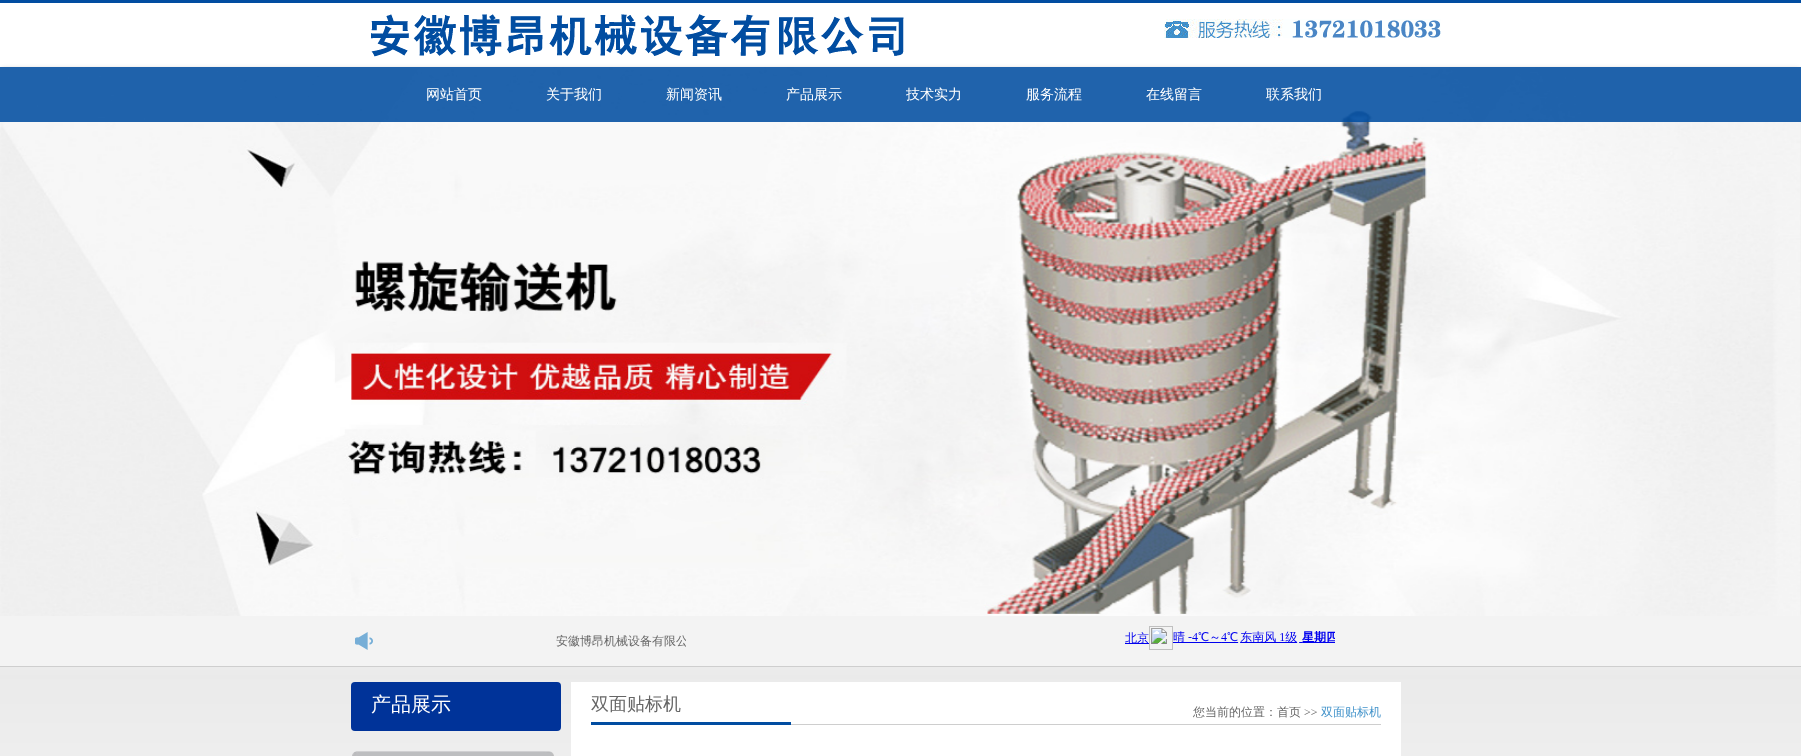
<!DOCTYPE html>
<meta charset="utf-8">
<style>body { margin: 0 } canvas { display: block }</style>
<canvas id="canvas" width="1801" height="756"></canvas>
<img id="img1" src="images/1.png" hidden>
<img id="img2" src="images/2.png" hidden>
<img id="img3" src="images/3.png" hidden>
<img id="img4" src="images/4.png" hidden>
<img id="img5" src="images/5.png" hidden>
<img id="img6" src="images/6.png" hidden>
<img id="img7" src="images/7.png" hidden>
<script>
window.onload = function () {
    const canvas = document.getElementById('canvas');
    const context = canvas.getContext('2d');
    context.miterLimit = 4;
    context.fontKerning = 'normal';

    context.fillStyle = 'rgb(255, 255, 255)';
    context.fillRect(0, 0, 1801, 756);
    context.fillStyle = 'rgb(1, 77, 161)';
    context.fillRect(0, 0, 1801, 3);
    context.drawImage(document.getElementById('img1'), 371, 14, 533, 43);
    context.drawImage(document.getElementById('img2'), 1164, 19, 277, 19);
    context.fillStyle = 'rgba(0, 0, 0, 0.2)';
    context.filter = 'blur(2px)';
    context.beginPath();
    context.roundRect(0, 68, 1801, 549, 4);
    context.fill();
    context.filter = 'none';
    context.drawImage(document.getElementById('img3'), 0, 67, 1801, 549);
    context.fillStyle = 'rgba(1, 77, 161, 0.88)';
    context.fillRect(0, 67, 1801, 55);
    context.fillStyle = 'rgb(243, 243, 243)';
    context.fillRect(0, 616, 1801, 50);
    context.fillStyle = 'rgb(206, 206, 206)';
    context.fillRect(0, 666, 1801, 1);
    context.drawImage(document.getElementById('img4'), 355, 632, 18, 18);
    context.drawImage(document.getElementById('img5'), 1125, 626, 210, 24);
    context.drawImage(document.getElementById('img6'), 0, 667, 1801, 89);
    context.fillStyle = 'rgb(0, 51, 153)';
    context.beginPath();
    context.roundRect(351, 682, 210, 49, 4);
    context.fill();
    context.drawImage(document.getElementById('img7'), 352, 751, 202, 5);
    context.fillStyle = 'rgb(255, 255, 255)';
    context.fillRect(571, 682, 830, 74);
    context.fillStyle = 'rgb(206, 206, 206)';
    context.fillRect(791, 724, 590, 1);
    context.fillStyle = 'rgb(1, 77, 161)';
    context.fillRect(591, 722, 200, 3);
    context.font = '500 14px WenQuanYi Zen Hei';
    context.fillStyle = 'rgb(255, 255, 255)';
    context.fillText('网站首页', 426, 99);
    context.fillText('关于我们', 546, 99);
    context.fillText('新闻资讯', 666, 99);
    context.fillText('产品展示', 786, 99);
    context.fillText('技术实力', 906, 99);
    context.fillText('服务流程', 1026, 99);
    context.fillText('在线留言', 1146, 99);
    context.fillText('联系我们', 1266, 99);
    context.save();
    context.beginPath();
    context.rect(386, 616, 300, 50);
    context.clip();
    context.font = '500 12px WenQuanYi Zen Hei';
    context.fillStyle = 'rgb(102, 102, 102)';
    context.fillText('安徽博昂机械设备有限公', 556, 645);
    context.restore();
    context.font = '500 20px WenQuanYi Zen Hei';
    context.fillText('产品展示', 371, 711);
    context.font = '500 18px WenQuanYi Zen Hei';
    context.fillStyle = 'rgb(102, 102, 102)';
    context.fillText('双面贴标机', 591, 710);
    context.font = '500 12px WenQuanYi Zen Hei';
    context.fillText('您当前的位置：首页', 1193, 716);
    context.font = '12px Liberation Serif';
    context.fillText('>>', 1304, 716);
    context.font = '500 12px WenQuanYi Zen Hei';
    context.fillStyle = 'rgb(68, 148, 203)';
    context.fillText('双面贴标机', 1321, 716);
};
</script>
